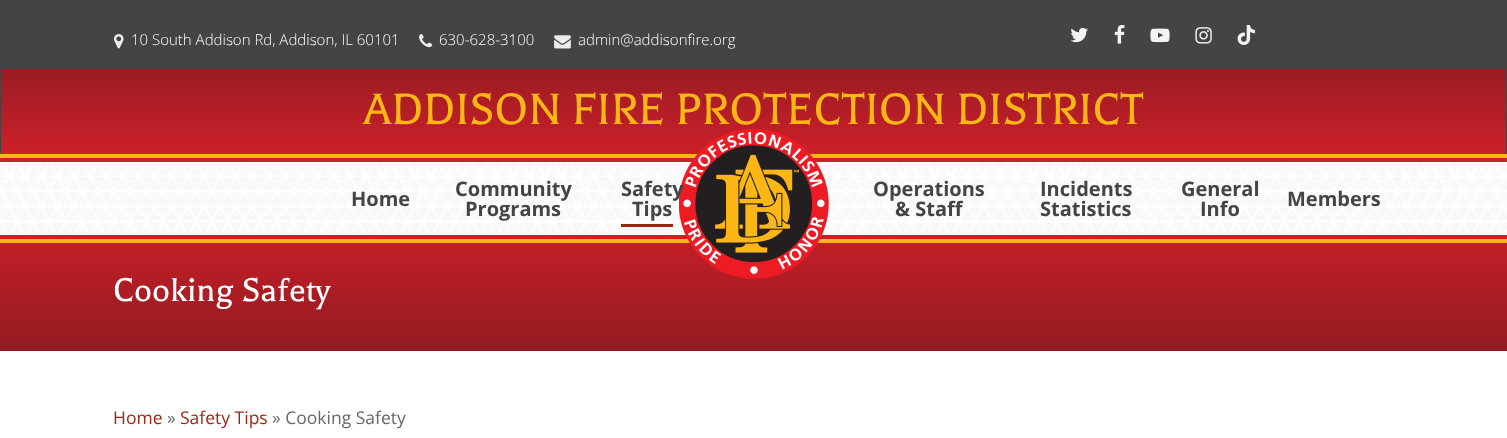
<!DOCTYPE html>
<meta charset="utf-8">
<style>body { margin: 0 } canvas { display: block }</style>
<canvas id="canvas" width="1507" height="438"></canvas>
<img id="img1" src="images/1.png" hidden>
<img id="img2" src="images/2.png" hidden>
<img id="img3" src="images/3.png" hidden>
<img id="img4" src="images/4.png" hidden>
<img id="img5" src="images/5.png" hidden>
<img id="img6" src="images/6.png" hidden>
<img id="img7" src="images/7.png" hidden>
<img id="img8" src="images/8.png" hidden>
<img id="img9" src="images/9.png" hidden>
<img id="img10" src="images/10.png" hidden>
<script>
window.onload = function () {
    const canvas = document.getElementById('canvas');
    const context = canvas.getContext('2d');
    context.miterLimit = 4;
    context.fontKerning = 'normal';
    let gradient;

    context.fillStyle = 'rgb(255, 255, 255)';
    context.fillRect(0, 0, 1507, 438);
    context.fillStyle = 'rgb(68, 68, 68)';
    context.fillRect(0, 0, 1507, 154);
    context.drawImage(document.getElementById('img1'), 114, 34, 10, 15);
    context.drawImage(document.getElementById('img2'), 419, 34, 14, 14);
    context.drawImage(document.getElementById('img3'), 554, 35, 17, 14);
    context.drawImage(document.getElementById('img4'), 1070, 27, 18, 16);
    context.drawImage(document.getElementById('img5'), 1114, 25, 11, 19);
    context.drawImage(document.getElementById('img6'), 1150, 28, 20, 15);
    context.drawImage(document.getElementById('img7'), 1195, 27, 17, 17);
    context.drawImage(document.getElementById('img8'), 1237, 25, 18, 20);
    gradient = context.createLinearGradient(754, 69, 754, 156);
    gradient.addColorStop(0, 'rgb(154, 28, 35)');
    gradient.addColorStop(1, 'rgb(206, 32, 41)');
    context.fillStyle = gradient;
    context.fillRect(1, 69, 1505, 85);
    context.drawImage(document.getElementById('img9'), 0, 163, 1507, 72);
    context.fillStyle = 'rgb(203, 32, 41)';
    context.fillRect(0, 158, 1507, 4);
    context.fillRect(0, 235, 1507, 4);
    context.fillStyle = 'rgb(253, 183, 20)';
    context.fillRect(0, 154, 1507, 4);
    context.fillRect(0, 239, 1507, 4);
    gradient = context.createLinearGradient(754, 351, 754, 239);
    gradient.addColorStop(0, 'rgb(146, 27, 33)');
    gradient.addColorStop(1, 'rgb(196, 30, 39)');
    context.fillStyle = gradient;
    context.fillRect(0, 243, 1507, 108);
    context.drawImage(document.getElementById('img10'), 679, 129, 150, 150);
    context.fillStyle = 'rgb(155, 38, 21)';
    context.fillRect(621, 224, 52, 3);
    context.font = '300 15px Open Sans';
    context.fillStyle = 'rgb(255, 255, 255)';
    context.fillText('10 South Addison Rd, Addison, IL 60101', 131, 45);
    context.fillText('630-628-3100', 439, 45);
    context.fillText('admin@addisonfire.org', 578, 45);
    context.font = '50px Balthazar';
    context.fillStyle = 'rgb(253, 183, 20)';
    context.fillText('ADDISON FIRE PROTECTION DISTRICT', 363, 124);
    context.font = 'bold 20px Open Sans';
    context.fillStyle = 'rgb(68, 68, 68)';
    context.fillText('Home', 351, 206);
    context.fillText('Community', 455, 196);
    context.fillText('Programs', 465, 216);
    context.fillText('Safety', 621, 196);
    context.fillText('Tips', 632, 216);
    context.fillText('Operations', 873, 196);
    context.fillText('& Staff', 895, 216);
    context.fillText('Incidents', 1040, 196);
    context.fillText('Statistics', 1040, 216);
    context.fillText('General', 1181, 196);
    context.fillText('Info', 1200, 216);
    context.fillText('Members', 1287, 206);
    context.font = '37.5px Balthazar';
    context.fillStyle = 'rgb(255, 255, 255)';
    context.fillText('Cooking Safety', 113, 301);
    context.font = '17.5px Open Sans';
    context.fillStyle = 'rgb(155, 38, 21)';
    context.fillText('Home', 113, 424);
    context.fillStyle = 'rgb(103, 103, 103)';
    context.fillText('»', 167, 424);
    context.fillStyle = 'rgb(155, 38, 21)';
    context.fillText('Safety Tips', 180, 424);
    context.fillStyle = 'rgb(103, 103, 103)';
    context.fillText('» Cooking Safety', 272, 424);
};
</script>
